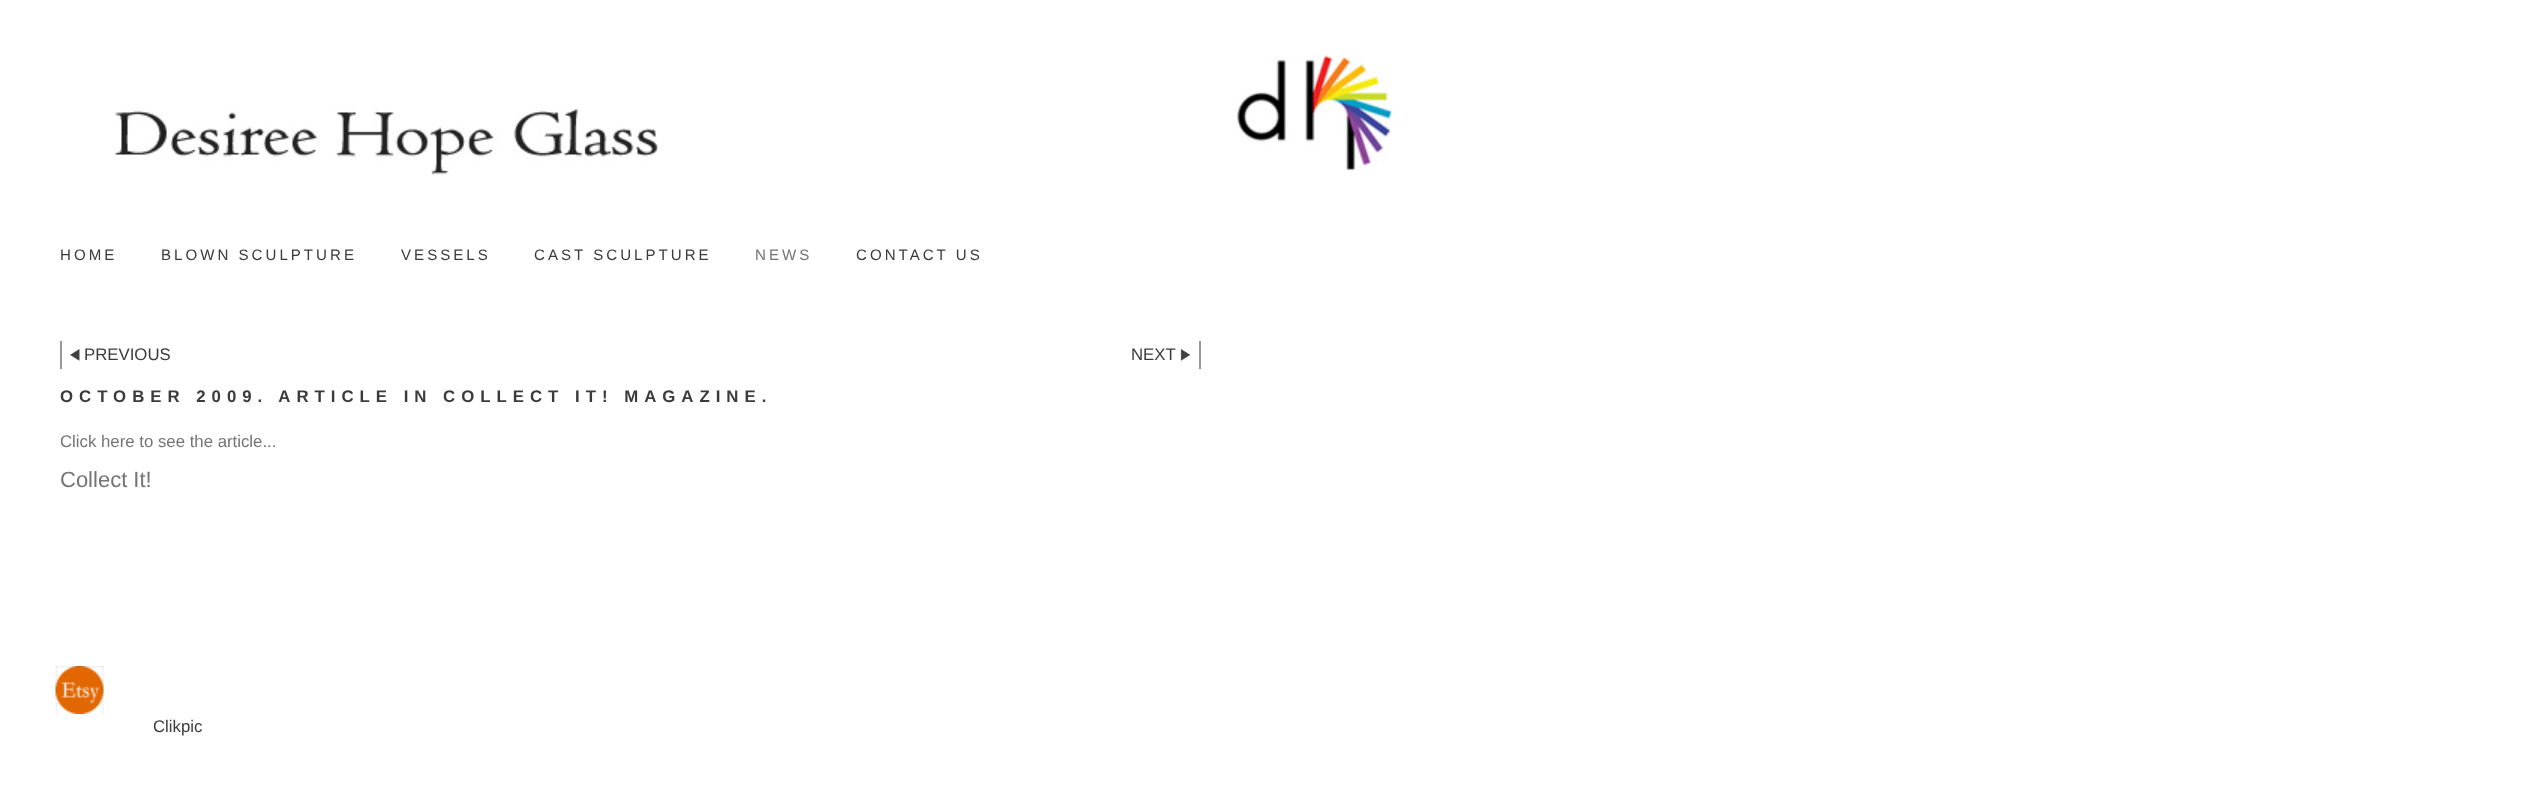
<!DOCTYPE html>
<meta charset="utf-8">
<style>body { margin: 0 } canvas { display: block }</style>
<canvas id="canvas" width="2536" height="791"></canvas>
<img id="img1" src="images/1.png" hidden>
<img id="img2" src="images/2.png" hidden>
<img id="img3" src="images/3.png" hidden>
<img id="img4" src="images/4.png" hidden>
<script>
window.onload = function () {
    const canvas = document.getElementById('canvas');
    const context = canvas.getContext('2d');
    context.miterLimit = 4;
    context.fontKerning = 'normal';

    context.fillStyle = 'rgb(255, 255, 255)';
    context.fillRect(0, 0, 2536, 791);
    context.drawImage(document.getElementById('img1'), 115, 55, 1278, 120);
    context.fillStyle = 'rgb(153, 153, 153)';
    context.fillRect(60, 341, 2, 28);
    context.drawImage(document.getElementById('img2'), 70, 349, 10, 12);
    context.fillRect(1199, 341, 2, 28);
    context.drawImage(document.getElementById('img3'), 1180, 349, 11, 12);
    context.drawImage(document.getElementById('img4'), 55, 666, 49, 48);
    context.letterSpacing = '3px';
    context.font = '15.1px Liberation Sans';
    context.fillStyle = 'rgb(59, 59, 59)';
    context.fillText('HOME', 60, 260);
    context.fillText('BLOWN SCULPTURE', 161, 260);
    context.fillText('VESSELS', 401, 260);
    context.fillText('CAST SCULPTURE', 534, 260);
    context.fillStyle = 'rgb(117, 116, 116)';
    context.fillText('NEWS', 755, 260);
    context.fillStyle = 'rgb(59, 59, 59)';
    context.fillText('CONTACT US', 856, 260);
    context.letterSpacing = '0px';
    context.font = '16.8px Liberation Sans';
    context.fillText('PREVIOUS', 84, 360);
    context.fillText('NEXT', 1131, 360);
    context.letterSpacing = '6px';
    context.font = 'bold 16.8px Liberation Sans';
    context.fillText('OCTOBER 2009. ARTICLE IN COLLECT IT! MAGAZINE.', 60, 402);
    context.letterSpacing = '0px';
    context.font = '16.8px Liberation Sans';
    context.fillStyle = 'rgb(117, 116, 116)';
    context.fillText('Click here to see the article...', 60, 447);
    context.font = '22px Liberation Sans';
    context.fillText('Collect It!', 60, 487);
    context.font = '16.8px Liberation Sans';
    context.fillStyle = 'rgb(59, 59, 59)';
    context.fillText('Clikpic', 153, 732);
};
</script>
